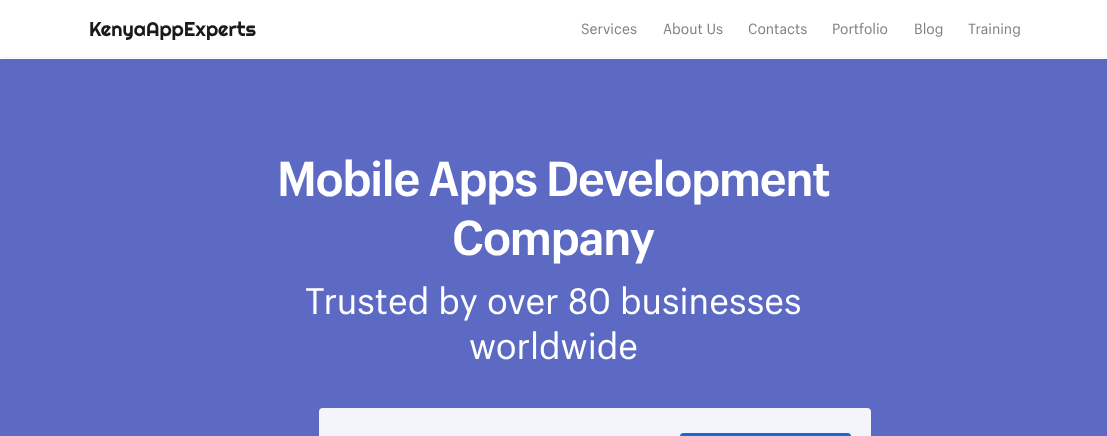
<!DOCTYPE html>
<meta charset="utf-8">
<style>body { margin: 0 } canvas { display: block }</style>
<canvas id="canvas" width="1107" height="436"></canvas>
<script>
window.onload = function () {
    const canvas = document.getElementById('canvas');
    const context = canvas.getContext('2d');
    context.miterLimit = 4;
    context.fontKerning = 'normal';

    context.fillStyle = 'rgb(255, 255, 255)';
    context.fillRect(0, 0, 1107, 436);
    context.fillStyle = 'rgb(92, 106, 196)';
    context.beginPath();
    context.moveTo(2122, 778);
    context.lineTo(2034, 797);
    context.bezierCurveTo(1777, 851, 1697, 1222, 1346, 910);
    context.bezierCurveTo(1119, 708, 721, 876, 372, 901);
    context.bezierCurveTo(181, 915, 0, 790, 0, 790);
    context.lineTo(0, 59);
    context.lineTo(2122, 59);
    context.fill();
    context.save();
    context.beginPath();
    context.rect(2, 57, 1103, 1);
    context.clip();
    context.fillStyle = 'rgba(0, 0, 0, 0.15)';
    context.filter = 'blur(1px)';
    context.beginPath();
    context.rect(2, 4, 1103, 53);
    context.fill();
    context.filter = 'none';
    context.restore();
    context.fillStyle = 'rgb(244, 245, 251)';
    context.beginPath();
    context.roundRect(319, 408, 552, 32, 4);
    context.fill();
    context.fillStyle = 'rgb(16, 107, 224)';
    context.beginPath();
    context.roundRect(680, 433, 171, 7, 4);
    context.fill();
    context.font = '20px Righteous';
    context.fillStyle = 'rgb(26, 26, 26)';
    context.fillText('KenyaAppExperts', 89, 36);
    context.font = '14.5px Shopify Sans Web';
    context.fillStyle = 'rgb(128, 128, 128)';
    context.fillText('Services', 581, 34);
    context.fillText('About Us', 663, 34);
    context.fillText('Contacts', 748, 34);
    context.fillText('Portfolio', 832, 34);
    context.fillText('Blog', 914, 34);
    context.fillText('Training', 968, 34);
    context.letterSpacing = '-1.2px';
    context.font = 'bold 48px Shopify Sans Web';
    context.fillStyle = 'rgb(255, 255, 255)';
    context.fillText('Mobile Apps Development', 277, 196);
    context.fillText('Company', 452, 255);
    context.letterSpacing = '0px';
    context.font = '36px Shopify Sans Web';
    context.fillText('Trusted by over 80 businesses', 305, 314);
    context.fillText('worldwide', 469, 359);
};
</script>
